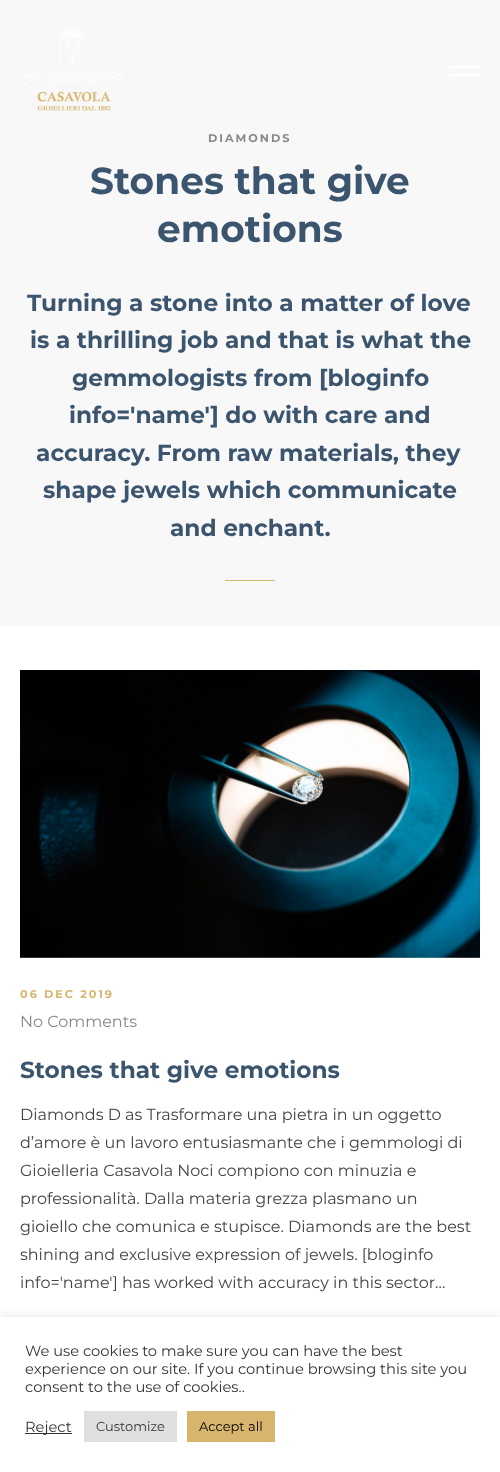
<!DOCTYPE html>
<meta charset="utf-8">
<style>body { margin: 0 } canvas { display: block }</style>
<canvas id="canvas" width="500" height="1472"></canvas>
<img id="img1" src="images/1.png" hidden>
<img id="img2" src="images/2.png" hidden>
<script>
window.onload = function () {
    const canvas = document.getElementById('canvas');
    const context = canvas.getContext('2d');
    context.miterLimit = 4;
    context.fontKerning = 'normal';

    context.fillStyle = 'rgb(248, 248, 248)';
    context.fillRect(0, 0, 500, 1472);
    context.drawImage(document.getElementById('img1'), 20, 26, 104, 93);
    context.fillStyle = 'rgb(255, 255, 255)';
    context.fillRect(450, 66, 30, 2);
    context.fillRect(450, 74, 30, 2);
    context.fillStyle = 'rgb(215, 181, 108)';
    context.fillRect(225, 580, 50, 1);
    context.fillStyle = 'rgb(255, 255, 255)';
    context.fillRect(0, 626, 500, 691);
    context.drawImage(document.getElementById('img2'), 20, 670, 460, 288);
    context.fillStyle = 'rgba(172, 171, 171, 0.3)';
    context.filter = 'blur(5px)';
    context.beginPath();
    context.rect(0, 1316, 500, 155);
    context.fill();
    context.filter = 'none';
    context.fillStyle = 'rgb(255, 255, 255)';
    context.fillRect(0, 1317, 500, 155);
    context.fillStyle = 'rgb(51, 51, 51)';
    context.fillRect(25, 1433, 47, 1);
    context.fillStyle = 'rgb(222, 223, 224)';
    context.fillRect(84, 1411, 93, 31);
    context.fillStyle = 'rgb(215, 181, 109)';
    context.fillRect(187, 1411, 88, 31);
    context.letterSpacing = '2px';
    context.font = 'bold 11.25px Montserrat';
    context.fillStyle = 'rgb(136, 136, 136)';
    context.fillText('DIAMONDS', 208, 142);
    context.letterSpacing = '0px';
    context.font = 'bold 37.5px Montserrat';
    context.fillStyle = 'rgb(60, 85, 110)';
    context.fillText('Stones that give', 90, 194);
    context.fillText('emotions', 157, 242);
    context.font = 'bold 23.25px Montserrat';
    context.fillText('Turning a stone into a matter of love', 27, 311);
    context.fillText('is a thrilling job and that is what the', 30, 348);
    context.fillText('gemmologists from [bloginfo', 72, 386);
    context.fillText('info=\'name\'] do with care and', 69, 423);
    context.fillText('accuracy. From raw materials, they', 36, 461);
    context.fillText('shape jewels which communicate', 43, 498);
    context.fillText('and enchant.', 170, 536);
    context.letterSpacing = '2px';
    context.font = 'bold 11.25px Montserrat';
    context.fillStyle = 'rgb(215, 181, 108)';
    context.fillText('06 DEC 2019', 20, 998);
    context.letterSpacing = '0px';
    context.font = '16px Montserrat';
    context.fillStyle = 'rgb(136, 136, 136)';
    context.fillText('No Comments', 20, 1027);
    context.font = 'bold 23.25px Montserrat';
    context.fillStyle = 'rgb(60, 85, 110)';
    context.fillText('Stones that give emotions', 20, 1078);
    context.font = '16px Montserrat';
    context.fillStyle = 'rgb(68, 68, 68)';
    context.fillText('Diamonds D as Trasformare una pietra in un oggetto', 20, 1120);
    context.fillText('d’amore è un lavoro entusiasmante che i gemmologi di', 20, 1148);
    context.fillText('Gioielleria Casavola Noci compiono con minuzia e', 20, 1176);
    context.fillText('professionalità. Dalla materia grezza plasmano un', 20, 1204);
    context.fillText('gioiello che comunica e stupisce. Diamonds are the best', 20, 1232);
    context.fillText('shining and exclusive expression of jewels. [bloginfo', 20, 1260);
    context.fillText('info=\'name\'] has worked with accuracy in this sector…', 20, 1288);
    context.font = '14.7px Montserrat';
    context.fillStyle = 'rgb(51, 51, 51)';
    context.fillText('We use cookies to make sure you can have the best', 25, 1356);
    context.fillText('experience on our site. If you continue browsing this site you', 25, 1374);
    context.fillText('consent to the use of cookies..', 25, 1392);
    context.fillText('Reject', 25, 1432);
    context.font = '13px Montserrat';
    context.fillText('Customize', 96, 1431);
    context.fillStyle = 'rgb(0, 0, 0)';
    context.fillText('Accept all', 199, 1431);
};
</script>
